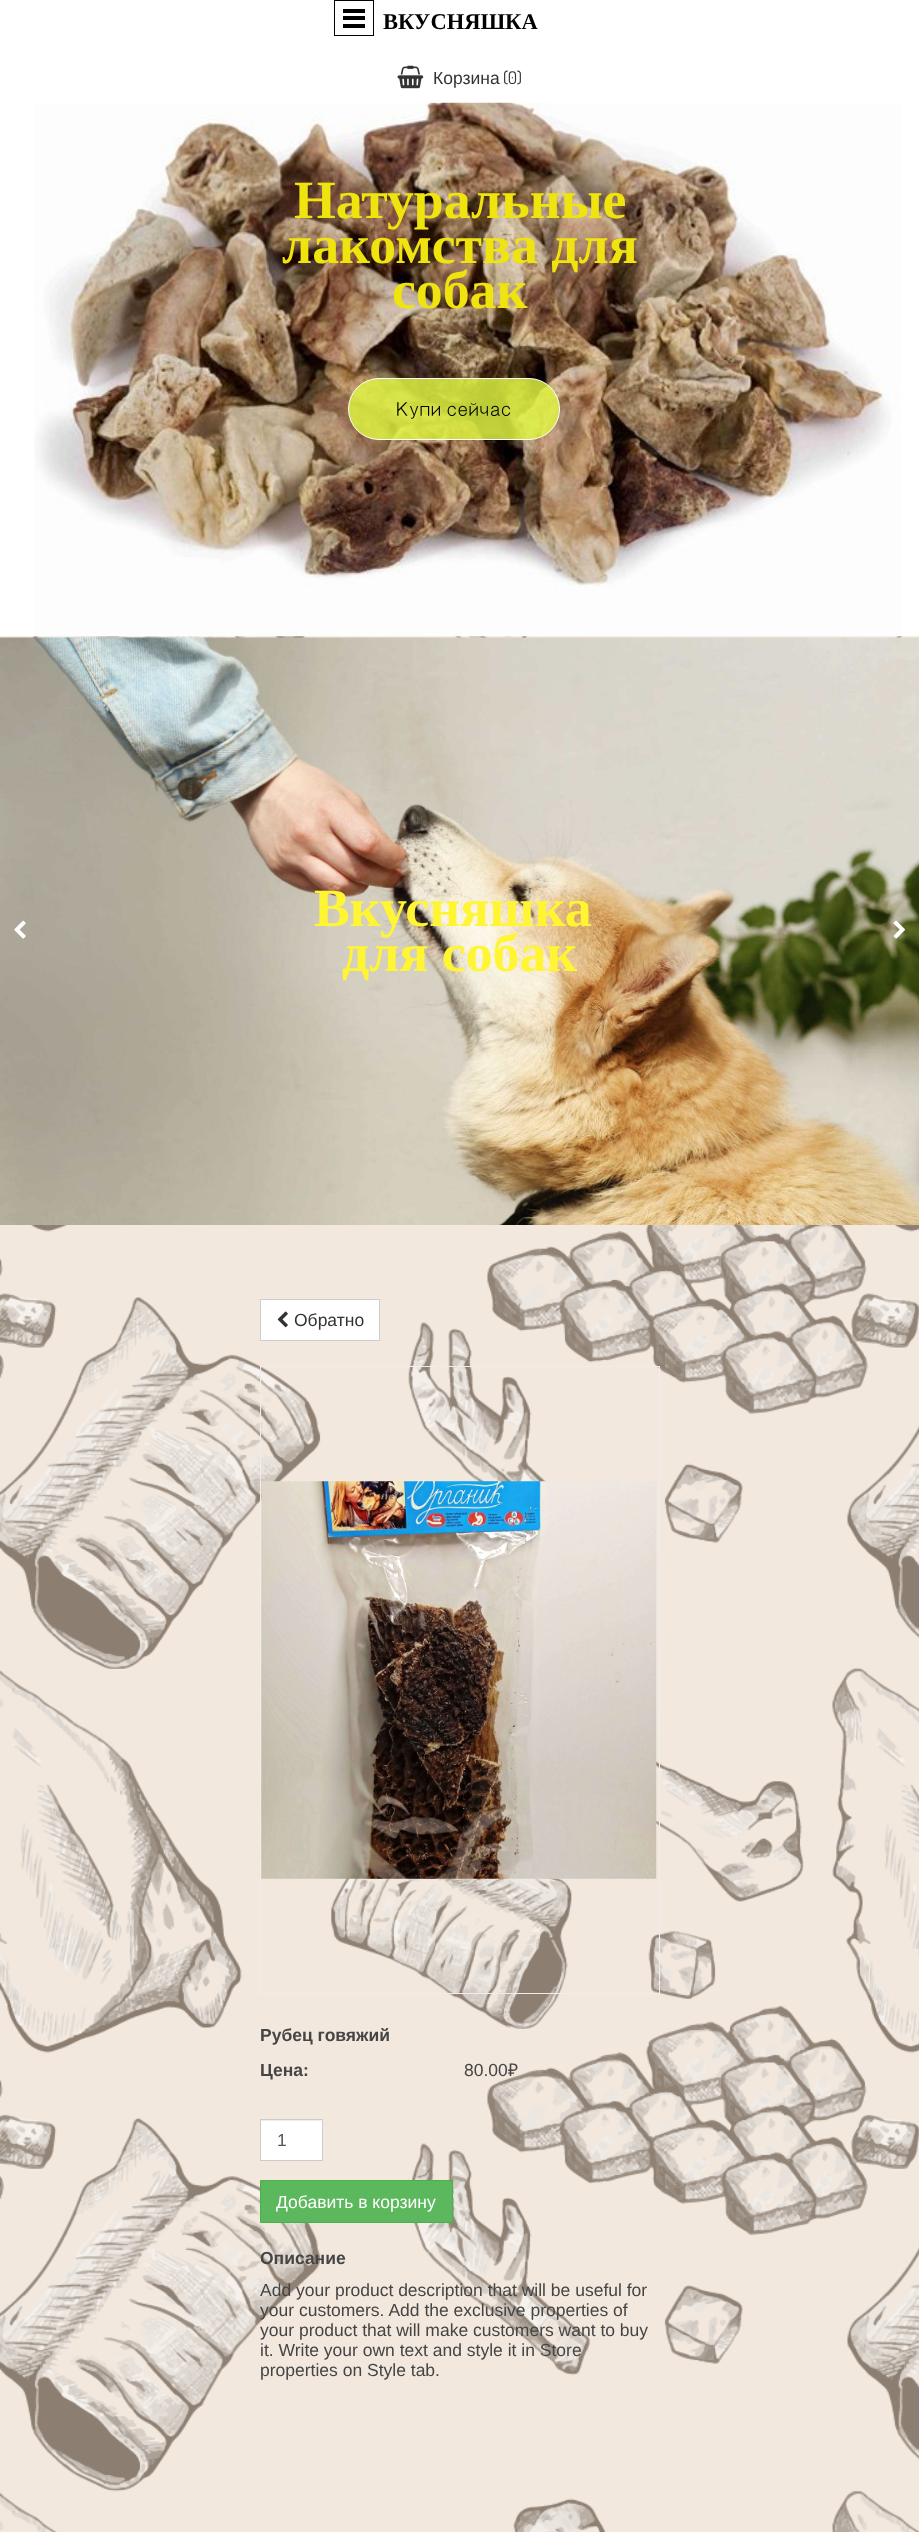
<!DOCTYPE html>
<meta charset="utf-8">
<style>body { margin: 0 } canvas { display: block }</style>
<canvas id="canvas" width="919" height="2532"></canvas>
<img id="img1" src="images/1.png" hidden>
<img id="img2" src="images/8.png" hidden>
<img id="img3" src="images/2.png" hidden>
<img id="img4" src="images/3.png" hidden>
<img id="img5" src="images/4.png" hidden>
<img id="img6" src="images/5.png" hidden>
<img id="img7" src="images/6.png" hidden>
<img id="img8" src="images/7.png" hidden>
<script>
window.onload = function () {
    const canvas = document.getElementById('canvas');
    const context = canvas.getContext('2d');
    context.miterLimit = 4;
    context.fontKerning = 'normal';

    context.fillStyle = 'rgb(255, 255, 255)';
    context.fillRect(0, 0, 919, 2532);
    context.strokeStyle = 'rgb(0, 0, 0)';
    context.strokeRect(334.5, 0.5, 39, 35);
    context.fillStyle = 'rgb(0, 0, 0)';
    context.fillRect(343, 9, 22, 4);
    context.fillRect(343, 16, 22, 4);
    context.fillRect(343, 24, 22, 4);
    context.drawImage(document.getElementById('img1'), 397, 65, 27, 24);
    context.drawImage(document.getElementById('img2'), 0, 636, 919, 1896);
    context.drawImage(document.getElementById('img3'), 34, 102, 867, 535);
    context.drawImage(document.getElementById('img4'), 0, 637, 919, 588);
    context.drawImage(document.getElementById('img5'), 14, 920, 12, 19);
    context.drawImage(document.getElementById('img6'), 893, 920, 12, 19);
    context.fillStyle = 'rgba(224, 245, 66, 0.83)';
    context.beginPath();
    context.roundRect(348.5, 378.5, 211, 61, 30.5);
    context.fill();
    context.strokeStyle = 'rgb(255, 255, 255)';
    context.stroke();
    context.fillStyle = 'rgb(255, 255, 255)';
    context.beginPath();
    context.rect(260.5, 1299.5, 119, 41);
    context.fill();
    context.strokeStyle = 'rgb(204, 204, 204)';
    context.stroke();
    context.drawImage(document.getElementById('img7'), 277, 1311, 11, 17);
    context.strokeStyle = 'rgb(238, 238, 238)';
    context.strokeRect(260.5, 1366.5, 399, 627);
    context.drawImage(document.getElementById('img8'), 261, 1481, 396, 398);
    context.fillRect(261, 2120, 61, 40);
    context.fillStyle = 'rgb(236, 236, 236)';
    context.fillRect(261, 2120, 60, 1);
    context.strokeStyle = 'rgb(204, 204, 204)';
    context.strokeRect(260.5, 2119.5, 62, 41);
    context.fillStyle = 'rgb(92, 184, 92)';
    context.beginPath();
    context.rect(260.5, 2180.5, 192, 42);
    context.fill();
    context.strokeStyle = 'rgb(76, 174, 76)';
    context.stroke();
    context.font = 'bold 22.5px Liberation Serif';
    context.fillStyle = 'rgb(0, 0, 0)';
    context.fillText('ВКУСНЯШКА', 383, 29);
    context.font = '17.5px Liberation Sans';
    context.fillStyle = 'rgb(51, 51, 51)';
    context.fillText('Корзина', 433, 84);
    context.font = '17.5px Dosis';
    context.fillText('(0)', 503, 84);
    context.font = 'bold 53.75px Liberation Serif';
    context.fillStyle = 'rgb(240, 228, 14)';
    context.fillText('Натуральные', 294, 218);
    context.fillText('лакомства для', 282, 263);
    context.fillText('собак', 392, 308);
    context.font = '18.75px NanumGothic';
    context.fillStyle = 'rgb(0, 0, 0)';
    context.fillText('Купи сейчас', 396, 415);
    context.font = 'bold 53.75px Liberation Serif';
    context.fillStyle = 'rgb(255, 245, 51)';
    context.fillText('Вкусняшка', 314, 926);
    context.fillText('для собак', 342, 971);
    context.font = '17.5px Liberation Sans';
    context.fillStyle = 'rgb(51, 51, 51)';
    context.fillText('Обратно', 294, 1326);
    context.font = 'bold 17.5px Liberation Sans';
    context.fillStyle = 'rgb(69, 69, 69)';
    context.fillText('Рубец говяжий', 260, 2041);
    context.fillText('Цена:', 260, 2076);
    context.font = '17.5px Liberation Sans';
    context.fillText('80.00', 464, 2076);
    context.font = '17.5px Noto Sans';
    context.fillText('₽', 508, 2076);
    context.font = '17.5px Liberation Sans';
    context.fillStyle = 'rgb(85, 85, 85)';
    context.fillText('1', 277, 2146);
    context.fillStyle = 'rgb(255, 255, 255)';
    context.fillText('Добавить в корзину', 276, 2208);
    context.font = 'bold 17.5px Liberation Sans';
    context.fillStyle = 'rgb(69, 69, 69)';
    context.fillText('Описание', 260, 2264);
    context.font = '17.5px Liberation Sans';
    context.fillText('Add your product description that will be useful for', 260, 2296);
    context.fillText('your customers. Add the exclusive properties of', 260, 2316);
    context.fillText('your product that will make customers want to buy', 260, 2336);
    context.fillText('it. Write your own text and style it in Store', 260, 2356);
    context.fillText('properties on Style tab.', 260, 2376);
};
</script>
